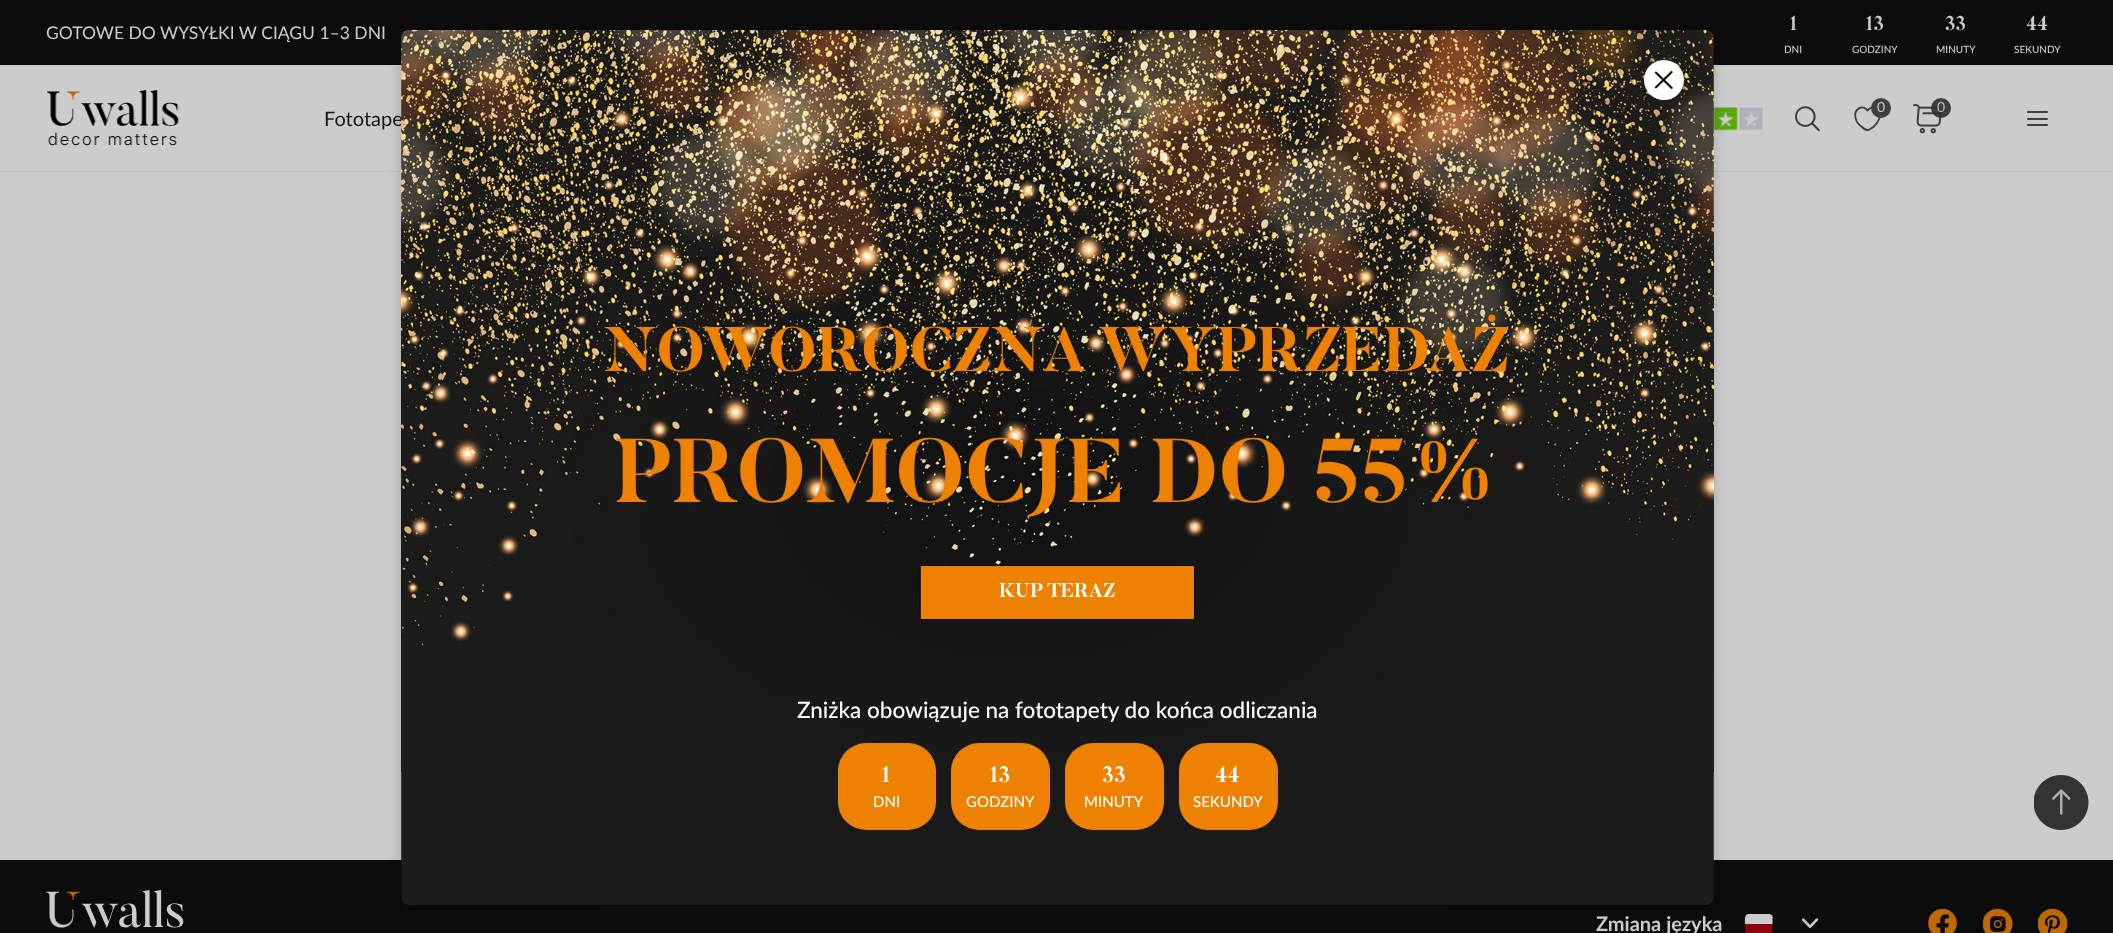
<!DOCTYPE html>
<meta charset="utf-8">
<style>body { margin: 0 } canvas { display: block }</style>
<canvas id="canvas" width="2113" height="933"></canvas>
<img id="img1" src="images/1.png" hidden>
<img id="img2" src="images/2.png" hidden>
<img id="img3" src="images/3.png" hidden>
<img id="img4" src="images/4.png" hidden>
<img id="img5" src="images/7.png" hidden>
<img id="img6" src="images/8.png" hidden>
<img id="img7" src="images/9.png" hidden>
<img id="img8" src="images/10.png" hidden>
<img id="img9" src="images/11.png" hidden>
<img id="img10" src="images/12.png" hidden>
<img id="img11" src="images/5.png" hidden>
<img id="img12" src="images/6.png" hidden>
<script>
window.onload = function () {
    const canvas = document.getElementById('canvas');
    const context = canvas.getContext('2d');
    context.miterLimit = 4;
    context.fontKerning = 'normal';

    context.fillStyle = 'rgb(204, 204, 204)';
    context.fillRect(0, 0, 2113, 933);
    context.fillStyle = 'rgb(12, 12, 12)';
    context.fillRect(0, 0, 2113, 65);
    context.fillStyle = 'rgb(190, 188, 186)';
    context.fillRect(0, 171, 2113, 1);
    context.drawImage(document.getElementById('img1'), 47, 90, 132, 56);
    context.drawImage(document.getElementById('img2'), 1713, 107, 50, 24);
    context.drawImage(document.getElementById('img3'), 1795, 106, 25, 26);
    context.beginPath();
    context.moveTo(1868.5, 130);
    context.bezierCurveTo(1866, 130.5, 1863, 128, 1861.5, 126.5);
    context.bezierCurveTo(1858.5, 124.5, 1856, 121.5, 1855.5, 117.5);
    context.bezierCurveTo(1853.5, 109, 1863, 104, 1867.5, 110.5);
    context.bezierCurveTo(1873, 102.5, 1885.5, 111.5, 1877, 123);
    context.bezierCurveTo(1875, 126, 1872, 128.5, 1868.5, 130);
    context.closePath();
    context.strokeStyle = 'rgb(64, 63, 59)';
    context.lineWidth = 1.9;
    context.lineCap = 'round';
    context.lineJoin = 'round';
    context.stroke();
    context.fillStyle = 'rgb(64, 63, 59)';
    context.beginPath();
    context.arc(1881, 108, 10, 0, 2 * Math.PI);
    context.fill();
    context.drawImage(document.getElementById('img4'), 1913, 104, 29, 30);
    context.fillStyle = 'rgba(49, 47, 43, 0.9)';
    context.beginPath();
    context.arc(1941, 108, 10, 0, 2 * Math.PI);
    context.fill();
    context.fillStyle = 'rgb(64, 63, 59)';
    context.beginPath();
    context.roundRect(2027, 111, 21, 2, 1);
    context.fill();
    context.beginPath();
    context.roundRect(2027, 118, 21, 2, 1);
    context.fill();
    context.beginPath();
    context.roundRect(2027, 124, 21, 2, 1);
    context.fill();
    context.fillStyle = 'rgb(12, 12, 12)';
    context.fillRect(0, 860, 2113, 73);
    context.fillStyle = 'rgba(0, 0, 0, 0.16)';
    context.filter = 'blur(6px)';
    context.beginPath();
    context.roundRect(400, 29, 1315, 877, 9);
    context.fill();
    context.filter = 'none';
    context.drawImage(document.getElementById('img5'), 2034, 775, 55, 55);
    context.drawImage(document.getElementById('img6'), 46, 890, 138, 38);
    context.fillStyle = 'rgb(140, 1, 10)';
    context.beginPath();
    context.moveTo(1749, 914);
    context.bezierCurveTo(1747, 914, 1745, 916, 1745, 918);
    context.lineTo(1745, 930);
    context.bezierCurveTo(1745, 931.5, 1746, 933, 1747.5, 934);
    context.lineTo(1770.5, 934);
    context.bezierCurveTo(1771.5, 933.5, 1772, 933, 1772.5, 932);
    context.lineTo(1772.5, 916);
    context.bezierCurveTo(1772, 915, 1770.5, 914, 1769, 914);
    context.closePath();
    context.fill();
    context.fillStyle = 'rgb(204, 204, 204)';
    context.beginPath();
    context.moveTo(1749, 914);
    context.bezierCurveTo(1744, 914, 1745, 920.5, 1745, 924);
    context.lineTo(1772.5, 924);
    context.lineTo(1772.5, 916);
    context.bezierCurveTo(1772, 915, 1770.5, 914, 1769, 914);
    context.closePath();
    context.fill();
    context.drawImage(document.getElementById('img7'), 1801, 918, 18, 10);
    context.drawImage(document.getElementById('img8'), 1928, 908, 29, 25);
    context.drawImage(document.getElementById('img9'), 1983, 908, 30, 25);
    context.drawImage(document.getElementById('img10'), 2038, 908, 30, 25);
    context.font = '17.5px Lato';
    context.fillText('GOTOWE DO WYSYŁKI W CIĄGU 1–3 DNI', 46, 39);
    context.font = 'bold 20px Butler';
    context.fillText('1', 1789, 30);
    context.font = '500 10px Lato';
    context.fillText('DNI', 1784, 53);
    context.font = 'bold 20px Butler';
    context.fillText('13', 1865, 30);
    context.font = '500 10px Lato';
    context.fillText('GODZINY', 1852, 53);
    context.font = 'bold 20px Butler';
    context.fillText('33', 1945, 30);
    context.font = '500 10px Lato';
    context.fillText('MINUTY', 1936, 53);
    context.font = 'bold 20px Butler';
    context.fillText('44', 2026, 30);
    context.font = '500 10px Lato';
    context.fillText('SEKUNDY', 2014, 53);
    context.font = '14px Lato';
    context.fillText('0', 1877, 112);
    context.fillStyle = 'rgb(190, 190, 190)';
    context.fillText('0', 1937, 112);
    context.font = '20px Lato';
    context.fillStyle = 'rgb(18, 22, 25)';
    context.fillText('Fototape', 324, 126);
    context.drawImage(document.getElementById('img11'), 401, 30, 1313, 875);
    context.fillStyle = 'rgb(255, 255, 255)';
    context.beginPath();
    context.arc(1664, 80, 20, 0, 2 * Math.PI);
    context.fill();
    context.drawImage(document.getElementById('img12'), 1654, 71, 19, 18);
    context.font = 'bold 62.5px Butler';
    context.fillStyle = 'rgb(239, 129, 0)';
    context.fillText('NOWOROCZNA WYPRZEDAŻ', 604, 371);
    context.font = 'bold 90px Butler';
    context.fillText('PROMOCJE DO 55%', 614, 502);
    context.beginPath();
    context.rect(920.5, 565.5, 274, 54);
    context.fill();
    context.strokeStyle = 'rgb(0, 0, 0)';
    context.lineWidth = 1;
    context.lineJoin = 'miter';
    context.stroke();
    context.font = 'bold 20px Butler';
    context.fillStyle = 'rgb(255, 255, 255)';
    context.fillText('KUP TERAZ', 999, 597);
    context.font = '500 22.5px Lato';
    context.fillText('Zniżka obowiązuje na fototapety do końca odliczania', 797, 718);
    context.fillStyle = 'rgb(239, 129, 0)';
    context.beginPath();
    context.roundRect(838, 743, 98, 87, 28);
    context.fill();
    context.font = 'bold 22.5px Butler';
    context.fillStyle = 'rgb(255, 255, 255)';
    context.fillText('1', 881, 782);
    context.font = '500 15px Lato';
    context.fillText('DNI', 873, 807);
    context.fillStyle = 'rgb(239, 129, 0)';
    context.beginPath();
    context.roundRect(951, 743, 99, 87, 28);
    context.fill();
    context.font = 'bold 22.5px Butler';
    context.fillStyle = 'rgb(255, 255, 255)';
    context.fillText('13', 989, 782);
    context.font = '500 15px Lato';
    context.fillText('GODZINY', 966, 807);
    context.fillStyle = 'rgb(239, 129, 0)';
    context.beginPath();
    context.roundRect(1065, 743, 99, 87, 28);
    context.fill();
    context.font = 'bold 22.5px Butler';
    context.fillStyle = 'rgb(255, 255, 255)';
    context.fillText('33', 1102, 782);
    context.font = '500 15px Lato';
    context.fillText('MINUTY', 1084, 807);
    context.fillStyle = 'rgb(239, 129, 0)';
    context.beginPath();
    context.roundRect(1179, 743, 99, 87, 28);
    context.fill();
    context.font = 'bold 22.5px Butler';
    context.fillStyle = 'rgb(255, 255, 255)';
    context.fillText('44', 1215, 782);
    context.font = '500 15px Lato';
    context.fillText('SEKUNDY', 1193, 807);
    context.font = 'bold 20px Lato';
    context.fillStyle = 'rgb(204, 204, 204)';
    context.fillText('Zmiana języka', 1596, 931);
};
</script>
